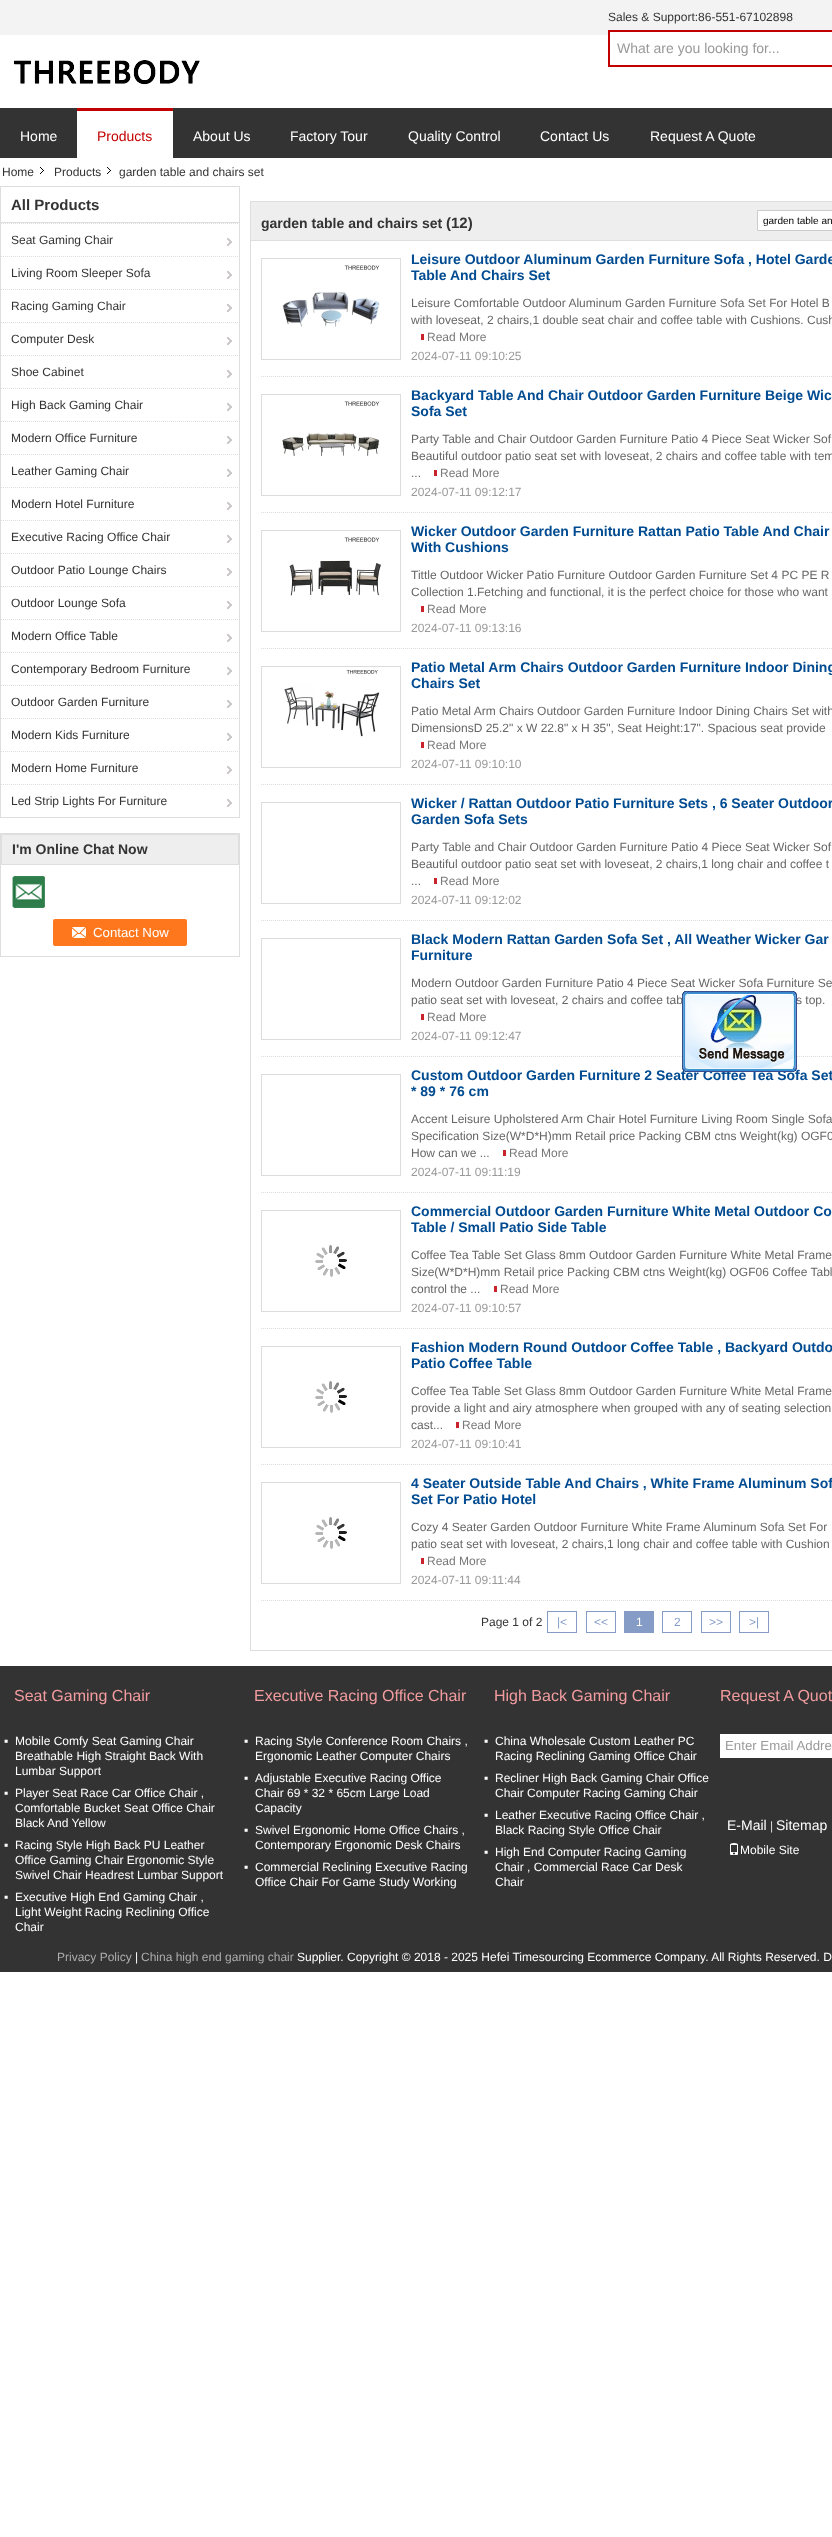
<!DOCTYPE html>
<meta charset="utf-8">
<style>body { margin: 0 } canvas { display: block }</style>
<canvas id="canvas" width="832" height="2537"></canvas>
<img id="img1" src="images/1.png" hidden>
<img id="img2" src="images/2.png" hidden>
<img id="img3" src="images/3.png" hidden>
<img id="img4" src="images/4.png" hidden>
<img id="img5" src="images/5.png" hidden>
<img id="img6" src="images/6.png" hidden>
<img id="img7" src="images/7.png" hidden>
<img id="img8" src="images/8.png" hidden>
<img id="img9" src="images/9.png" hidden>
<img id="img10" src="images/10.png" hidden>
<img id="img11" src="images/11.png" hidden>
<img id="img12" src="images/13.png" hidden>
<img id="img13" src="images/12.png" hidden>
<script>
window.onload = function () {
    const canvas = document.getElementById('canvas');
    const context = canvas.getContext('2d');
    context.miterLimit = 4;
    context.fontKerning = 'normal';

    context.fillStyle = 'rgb(255, 255, 255)';
    context.fillRect(0, 0, 832, 2537);
    context.fillStyle = 'rgb(243, 243, 243)';
    context.fillRect(0, 0, 832, 35);
    context.fillStyle = 'rgb(255, 255, 255)';
    context.fillRect(610, 32, 222, 3);
    context.fillStyle = 'rgb(195, 0, 0)';
    context.fillRect(608, 30, 224, 2);
    context.fillRect(608, 65, 224, 2);
    context.fillRect(608, 30, 2, 37);
    context.drawImage(document.getElementById('img1'), 14, 60, 186, 25);
    context.fillStyle = 'rgb(51, 51, 51)';
    context.fillRect(0, 108, 832, 50);
    context.fillStyle = 'rgb(255, 255, 255)';
    context.fillRect(77, 111, 96, 47);
    context.fillStyle = 'rgb(195, 0, 0)';
    context.fillRect(77, 108, 96, 3);
    context.drawImage(document.getElementById('img2'), 40, 167, 4, 7);
    context.drawImage(document.getElementById('img3'), 107, 167, 5, 7);
    context.strokeStyle = 'rgb(222, 222, 222)';
    context.strokeRect(0.5, 186.5, 239, 631);
    context.fillStyle = 'rgb(222, 222, 222)';
    context.fillRect(1, 222, 238, 1);
    context.drawImage(document.getElementById('img4'), 227, 238, 5, 8);
    context.beginPath();
    context.moveTo(1, 223.5);
    context.lineTo(239, 223.5);
    context.setLineDash([1, 1]);
    context.stroke();
    context.drawImage(document.getElementById('img4'), 227, 271, 5, 8);
    context.beginPath();
    context.moveTo(1, 256.5);
    context.lineTo(239, 256.5);
    context.stroke();
    context.drawImage(document.getElementById('img4'), 227, 304, 5, 8);
    context.beginPath();
    context.moveTo(1, 289.5);
    context.lineTo(239, 289.5);
    context.stroke();
    context.drawImage(document.getElementById('img4'), 227, 337, 5, 8);
    context.beginPath();
    context.moveTo(1, 322.5);
    context.lineTo(239, 322.5);
    context.stroke();
    context.drawImage(document.getElementById('img4'), 227, 370, 5, 8);
    context.beginPath();
    context.moveTo(1, 355.5);
    context.lineTo(239, 355.5);
    context.stroke();
    context.drawImage(document.getElementById('img4'), 227, 403, 5, 8);
    context.beginPath();
    context.moveTo(1, 388.5);
    context.lineTo(239, 388.5);
    context.stroke();
    context.drawImage(document.getElementById('img4'), 227, 436, 5, 8);
    context.beginPath();
    context.moveTo(1, 421.5);
    context.lineTo(239, 421.5);
    context.stroke();
    context.drawImage(document.getElementById('img4'), 227, 469, 5, 8);
    context.beginPath();
    context.moveTo(1, 454.5);
    context.lineTo(239, 454.5);
    context.stroke();
    context.drawImage(document.getElementById('img4'), 227, 502, 5, 8);
    context.beginPath();
    context.moveTo(1, 487.5);
    context.lineTo(239, 487.5);
    context.stroke();
    context.drawImage(document.getElementById('img4'), 227, 535, 5, 8);
    context.beginPath();
    context.moveTo(1, 520.5);
    context.lineTo(239, 520.5);
    context.stroke();
    context.drawImage(document.getElementById('img4'), 227, 568, 5, 8);
    context.beginPath();
    context.moveTo(1, 553.5);
    context.lineTo(239, 553.5);
    context.stroke();
    context.drawImage(document.getElementById('img4'), 227, 601, 5, 8);
    context.beginPath();
    context.moveTo(1, 586.5);
    context.lineTo(239, 586.5);
    context.stroke();
    context.drawImage(document.getElementById('img4'), 227, 634, 5, 8);
    context.beginPath();
    context.moveTo(1, 619.5);
    context.lineTo(239, 619.5);
    context.stroke();
    context.drawImage(document.getElementById('img4'), 227, 667, 5, 8);
    context.beginPath();
    context.moveTo(1, 652.5);
    context.lineTo(239, 652.5);
    context.stroke();
    context.drawImage(document.getElementById('img4'), 227, 700, 5, 8);
    context.beginPath();
    context.moveTo(1, 685.5);
    context.lineTo(239, 685.5);
    context.stroke();
    context.drawImage(document.getElementById('img4'), 227, 733, 5, 8);
    context.beginPath();
    context.moveTo(1, 718.5);
    context.lineTo(239, 718.5);
    context.stroke();
    context.drawImage(document.getElementById('img4'), 227, 766, 5, 8);
    context.beginPath();
    context.moveTo(1, 751.5);
    context.lineTo(239, 751.5);
    context.stroke();
    context.drawImage(document.getElementById('img4'), 227, 799, 5, 8);
    context.beginPath();
    context.moveTo(1, 784.5);
    context.lineTo(239, 784.5);
    context.stroke();
    context.setLineDash([]);
    context.strokeRect(0.5, 833.5, 239, 123);
    context.fillStyle = 'rgb(238, 238, 238)';
    context.beginPath();
    context.rect(1.5, 834.5, 237, 30);
    context.fill();
    context.stroke();
    context.drawImage(document.getElementById('img5'), 12, 876, 33, 32);
    context.fillStyle = 'rgb(255, 119, 28)';
    context.beginPath();
    context.roundRect(53, 919, 134, 27, 2);
    context.fill();
    context.drawImage(document.getElementById('img6'), 72, 927, 14, 11);
    context.strokeRect(250.5, 201.5, 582, 1449);
    context.fillStyle = 'rgb(238, 238, 238)';
    context.fillRect(251, 202, 581, 38);
    context.fillStyle = 'rgb(222, 222, 222)';
    context.fillRect(251, 240, 581, 1);
    context.fillStyle = 'rgb(255, 255, 255)';
    context.beginPath();
    context.rect(757.5, 210.5, 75, 20);
    context.fill();
    context.strokeStyle = 'rgb(204, 204, 204)';
    context.stroke();
    context.beginPath();
    context.moveTo(261, 376.5);
    context.lineTo(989, 376.5);
    context.strokeStyle = 'rgb(220, 220, 220)';
    context.setLineDash([1, 1]);
    context.stroke();
    context.setLineDash([]);
    context.strokeRect(261.5, 258.5, 139, 101);
    context.drawImage(document.getElementById('img7'), 282, 265, 98, 62);
    context.fillStyle = 'rgb(201, 36, 43)';
    context.fillRect(421, 334, 3, 6);
    context.beginPath();
    context.moveTo(261, 512.5);
    context.lineTo(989, 512.5);
    context.setLineDash([1, 1]);
    context.stroke();
    context.setLineDash([]);
    context.strokeRect(261.5, 394.5, 139, 101);
    context.drawImage(document.getElementById('img8'), 282, 401, 98, 55);
    context.fillRect(434, 470, 3, 6);
    context.beginPath();
    context.moveTo(261, 648.5);
    context.lineTo(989, 648.5);
    context.setLineDash([1, 1]);
    context.stroke();
    context.setLineDash([]);
    context.strokeRect(261.5, 530.5, 139, 101);
    context.drawImage(document.getElementById('img9'), 289, 537, 92, 59);
    context.fillRect(421, 606, 3, 6);
    context.beginPath();
    context.moveTo(261, 784.5);
    context.lineTo(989, 784.5);
    context.setLineDash([1, 1]);
    context.stroke();
    context.setLineDash([]);
    context.strokeRect(261.5, 666.5, 139, 101);
    context.drawImage(document.getElementById('img10'), 284, 670, 96, 67);
    context.fillRect(421, 742, 3, 6);
    context.beginPath();
    context.moveTo(261, 920.5);
    context.lineTo(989, 920.5);
    context.setLineDash([1, 1]);
    context.stroke();
    context.setLineDash([]);
    context.strokeRect(261.5, 802.5, 139, 101);
    context.fillRect(434, 878, 3, 6);
    context.beginPath();
    context.moveTo(261, 1056.5);
    context.lineTo(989, 1056.5);
    context.setLineDash([1, 1]);
    context.stroke();
    context.setLineDash([]);
    context.strokeRect(261.5, 938.5, 139, 101);
    context.fillRect(421, 1014, 3, 6);
    context.beginPath();
    context.moveTo(261, 1192.5);
    context.lineTo(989, 1192.5);
    context.setLineDash([1, 1]);
    context.stroke();
    context.setLineDash([]);
    context.strokeRect(261.5, 1074.5, 139, 101);
    context.fillRect(503, 1150, 3, 6);
    context.beginPath();
    context.moveTo(261, 1328.5);
    context.lineTo(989, 1328.5);
    context.setLineDash([1, 1]);
    context.stroke();
    context.setLineDash([]);
    context.strokeRect(261.5, 1210.5, 139, 101);
    context.drawImage(document.getElementById('img11'), 315, 1245, 32, 32);
    context.fillRect(494, 1286, 3, 6);
    context.beginPath();
    context.moveTo(261, 1464.5);
    context.lineTo(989, 1464.5);
    context.setLineDash([1, 1]);
    context.stroke();
    context.setLineDash([]);
    context.strokeRect(261.5, 1346.5, 139, 101);
    context.drawImage(document.getElementById('img11'), 315, 1381, 32, 32);
    context.fillRect(456, 1422, 3, 6);
    context.beginPath();
    context.moveTo(261, 1600.5);
    context.lineTo(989, 1600.5);
    context.setLineDash([1, 1]);
    context.stroke();
    context.setLineDash([]);
    context.strokeRect(261.5, 1482.5, 139, 101);
    context.drawImage(document.getElementById('img11'), 315, 1517, 32, 32);
    context.fillRect(421, 1558, 3, 6);
    context.strokeStyle = 'rgb(132, 156, 198)';
    context.strokeRect(547.5, 1611.5, 29, 21);
    context.strokeRect(586.5, 1611.5, 29, 21);
    context.fillStyle = 'rgb(132, 156, 198)';
    context.fillRect(624, 1611, 30, 22);
    context.strokeRect(662.5, 1611.5, 29, 21);
    context.strokeRect(701.5, 1611.5, 29, 21);
    context.strokeRect(739.5, 1611.5, 29, 21);
    context.fillStyle = 'rgb(51, 51, 51)';
    context.fillRect(0, 1666, 832, 306);
    context.fillStyle = 'rgb(255, 255, 255)';
    context.fillRect(720, 1734, 112, 24);
    context.drawImage(document.getElementById('img12'), 730, 1843, 8, 12);
    context.font = '12px Liberation Sans';
    context.fillStyle = 'rgb(51, 51, 51)';
    context.fillText('Sales & Support:86-551-67102898', 608, 21);
    context.font = '14px Liberation Sans';
    context.fillStyle = 'rgb(153, 153, 153)';
    context.fillText('What are you looking for...', 617, 53);
    context.fillStyle = 'rgb(255, 255, 255)';
    context.fillText('Home', 20, 141);
    context.fillStyle = 'rgb(195, 0, 0)';
    context.fillText('Products', 97, 141);
    context.fillStyle = 'rgb(255, 255, 255)';
    context.fillText('About Us', 193, 141);
    context.fillText('Factory Tour', 290, 141);
    context.fillText('Quality Control', 408, 141);
    context.fillText('Contact Us', 540, 141);
    context.fillText('Request A Quote', 650, 141);
    context.font = '12px Liberation Sans';
    context.fillStyle = 'rgb(51, 51, 51)';
    context.fillText('Home', 2, 176);
    context.fillText('Products', 54, 176);
    context.fillText('garden table and chairs set', 119, 176);
    context.font = 'bold 15px Liberation Sans';
    context.fillText('All Products', 11, 210);
    context.font = '12px Liberation Sans';
    context.fillText('Seat Gaming Chair', 11, 244);
    context.fillText('Living Room Sleeper Sofa', 11, 277);
    context.fillText('Racing Gaming Chair', 11, 310);
    context.fillText('Computer Desk', 11, 343);
    context.fillText('Shoe Cabinet', 11, 376);
    context.fillText('High Back Gaming Chair', 11, 409);
    context.fillText('Modern Office Furniture', 11, 442);
    context.fillText('Leather Gaming Chair', 11, 475);
    context.fillText('Modern Hotel Furniture', 11, 508);
    context.fillText('Executive Racing Office Chair', 11, 541);
    context.fillText('Outdoor Patio Lounge Chairs', 11, 574);
    context.fillText('Outdoor Lounge Sofa', 11, 607);
    context.fillText('Modern Office Table', 11, 640);
    context.fillText('Contemporary Bedroom Furniture', 11, 673);
    context.fillText('Outdoor Garden Furniture', 11, 706);
    context.fillText('Modern Kids Furniture', 11, 739);
    context.fillText('Modern Home Furniture', 11, 772);
    context.fillText('Led Strip Lights For Furniture', 11, 805);
    context.font = 'bold 14px Liberation Sans';
    context.fillText('I\'m Online Chat Now', 12, 854);
    context.font = '13.25px Liberation Sans';
    context.fillStyle = 'rgb(255, 255, 255)';
    context.fillText('Contact Now', 93, 937);
    context.font = 'bold 14px Liberation Sans';
    context.fillStyle = 'rgb(51, 51, 51)';
    context.fillText('garden table and chairs set', 261, 228);
    context.font = 'bold 15px Liberation Sans';
    context.fillText('(12)', 446, 228);
    context.font = '10px Liberation Sans';
    context.fillStyle = 'rgb(0, 0, 0)';
    context.fillText('garden table an', 763, 224);
    context.font = 'bold 14px Liberation Sans';
    context.fillStyle = 'rgb(0, 75, 145)';
    context.fillText('Leisure Outdoor Aluminum Garden Furniture Sofa , Hotel Garde', 411, 264);
    context.fillText('Table And Chairs Set', 411, 280);
    context.font = '12px Liberation Sans';
    context.fillStyle = 'rgb(102, 102, 102)';
    context.fillText('Leisure Comfortable Outdoor Aluminum Garden Furniture Sofa Set For Hotel B', 411, 307);
    context.fillText('with loveseat, 2 chairs,1 double seat chair and coffee table with Cushions. Cush', 411, 324);
    context.fillStyle = 'rgb(120, 120, 120)';
    context.fillText('Read More', 427, 341);
    context.fillStyle = 'rgb(153, 153, 153)';
    context.fillText('2024-07-11 09:10:25', 411, 360);
    context.font = 'bold 14px Liberation Sans';
    context.fillStyle = 'rgb(0, 75, 145)';
    context.fillText('Backyard Table And Chair Outdoor Garden Furniture Beige Wic', 411, 400);
    context.fillText('Sofa Set', 411, 416);
    context.font = '12px Liberation Sans';
    context.fillStyle = 'rgb(102, 102, 102)';
    context.fillText('Party Table and Chair Outdoor Garden Furniture Patio 4 Piece Seat Wicker Sof', 411, 443);
    context.fillText('Beautiful outdoor patio seat set with loveseat, 2 chairs and coffee table with tem', 411, 460);
    context.fillText('...', 411, 477);
    context.fillStyle = 'rgb(120, 120, 120)';
    context.fillText('Read More', 440, 477);
    context.fillStyle = 'rgb(153, 153, 153)';
    context.fillText('2024-07-11 09:12:17', 411, 496);
    context.font = 'bold 14px Liberation Sans';
    context.fillStyle = 'rgb(0, 75, 145)';
    context.fillText('Wicker Outdoor Garden Furniture Rattan Patio Table And Chair', 411, 536);
    context.fillText('With Cushions', 411, 552);
    context.font = '12px Liberation Sans';
    context.fillStyle = 'rgb(102, 102, 102)';
    context.fillText('Tittle Outdoor Wicker Patio Furniture Outdoor Garden Furniture Set 4 PC PE R', 411, 579);
    context.fillText('Collection 1.Fetching and functional, it is the perfect choice for those who want', 411, 596);
    context.fillStyle = 'rgb(120, 120, 120)';
    context.fillText('Read More', 427, 613);
    context.fillStyle = 'rgb(153, 153, 153)';
    context.fillText('2024-07-11 09:13:16', 411, 632);
    context.font = 'bold 14px Liberation Sans';
    context.fillStyle = 'rgb(0, 75, 145)';
    context.fillText('Patio Metal Arm Chairs Outdoor Garden Furniture Indoor Dining', 411, 672);
    context.fillText('Chairs Set', 411, 688);
    context.font = '12px Liberation Sans';
    context.fillStyle = 'rgb(102, 102, 102)';
    context.fillText('Patio Metal Arm Chairs Outdoor Garden Furniture Indoor Dining Chairs Set with', 411, 715);
    context.fillText('DimensionsD 25.2" x W 22.8" x H 35", Seat Height:17". Spacious seat provide', 411, 732);
    context.fillStyle = 'rgb(120, 120, 120)';
    context.fillText('Read More', 427, 749);
    context.fillStyle = 'rgb(153, 153, 153)';
    context.fillText('2024-07-11 09:10:10', 411, 768);
    context.font = 'bold 14px Liberation Sans';
    context.fillStyle = 'rgb(0, 75, 145)';
    context.fillText('Wicker / Rattan Outdoor Patio Furniture Sets , 6 Seater Outdoor', 411, 808);
    context.fillText('Garden Sofa Sets', 411, 824);
    context.font = '12px Liberation Sans';
    context.fillStyle = 'rgb(102, 102, 102)';
    context.fillText('Party Table and Chair Outdoor Garden Furniture Patio 4 Piece Seat Wicker Sof', 411, 851);
    context.fillText('Beautiful outdoor patio seat set with loveseat, 2 chairs,1 long chair and coffee t', 411, 868);
    context.fillText('...', 411, 885);
    context.fillStyle = 'rgb(120, 120, 120)';
    context.fillText('Read More', 440, 885);
    context.fillStyle = 'rgb(153, 153, 153)';
    context.fillText('2024-07-11 09:12:02', 411, 904);
    context.font = 'bold 14px Liberation Sans';
    context.fillStyle = 'rgb(0, 75, 145)';
    context.fillText('Black Modern Rattan Garden Sofa Set , All Weather Wicker Gar', 411, 944);
    context.fillText('Furniture', 411, 960);
    context.font = '12px Liberation Sans';
    context.fillStyle = 'rgb(102, 102, 102)';
    context.fillText('Modern Outdoor Garden Furniture Patio 4 Piece Seat Wicker Sofa Furniture Se', 411, 987);
    context.fillText('patio seat set with loveseat, 2 chairs and coffee tab', 411, 1004);
    context.fillText('s top.', 796, 1004);
    context.fillStyle = 'rgb(120, 120, 120)';
    context.fillText('Read More', 427, 1021);
    context.fillStyle = 'rgb(153, 153, 153)';
    context.fillText('2024-07-11 09:12:47', 411, 1040);
    context.font = 'bold 14px Liberation Sans';
    context.fillStyle = 'rgb(0, 75, 145)';
    context.fillText('Custom Outdoor Garden Furniture 2 Seater Coffee Tea Sofa Set', 411, 1080);
    context.fillText('* 89 * 76 cm', 411, 1096);
    context.font = '12px Liberation Sans';
    context.fillStyle = 'rgb(102, 102, 102)';
    context.fillText('Accent Leisure Upholstered Arm Chair Hotel Furniture Living Room Single Sofa', 411, 1123);
    context.fillText('Specification Size(W*D*H)mm Retail price Packing CBM ctns Weight(kg) OGF0', 411, 1140);
    context.fillText('How can we ...', 411, 1157);
    context.fillStyle = 'rgb(120, 120, 120)';
    context.fillText('Read More', 509, 1157);
    context.fillStyle = 'rgb(153, 153, 153)';
    context.fillText('2024-07-11 09:11:19', 411, 1176);
    context.font = 'bold 14px Liberation Sans';
    context.fillStyle = 'rgb(0, 75, 145)';
    context.fillText('Commercial Outdoor Garden Furniture White Metal Outdoor Co', 411, 1216);
    context.fillText('Table / Small Patio Side Table', 411, 1232);
    context.font = '12px Liberation Sans';
    context.fillStyle = 'rgb(102, 102, 102)';
    context.fillText('Coffee Tea Table Set Glass 8mm Outdoor Garden Furniture White Metal Frame', 411, 1259);
    context.fillText('Size(W*D*H)mm Retail price Packing CBM ctns Weight(kg) OGF06 Coffee Tabl', 411, 1276);
    context.fillText('control the ...', 411, 1293);
    context.fillStyle = 'rgb(120, 120, 120)';
    context.fillText('Read More', 500, 1293);
    context.fillStyle = 'rgb(153, 153, 153)';
    context.fillText('2024-07-11 09:10:57', 411, 1312);
    context.font = 'bold 14px Liberation Sans';
    context.fillStyle = 'rgb(0, 75, 145)';
    context.fillText('Fashion Modern Round Outdoor Coffee Table , Backyard Outdo', 411, 1352);
    context.fillText('Patio Coffee Table', 411, 1368);
    context.font = '12px Liberation Sans';
    context.fillStyle = 'rgb(102, 102, 102)';
    context.fillText('Coffee Tea Table Set Glass 8mm Outdoor Garden Furniture White Metal Frame', 411, 1395);
    context.fillText('provide a light and airy atmosphere when grouped with any of seating selection', 411, 1412);
    context.fillText('cast...', 411, 1429);
    context.fillStyle = 'rgb(120, 120, 120)';
    context.fillText('Read More', 462, 1429);
    context.fillStyle = 'rgb(153, 153, 153)';
    context.fillText('2024-07-11 09:10:41', 411, 1448);
    context.font = 'bold 14px Liberation Sans';
    context.fillStyle = 'rgb(0, 75, 145)';
    context.fillText('4 Seater Outside Table And Chairs , White Frame Aluminum Sof', 411, 1488);
    context.fillText('Set For Patio Hotel', 411, 1504);
    context.font = '12px Liberation Sans';
    context.fillStyle = 'rgb(102, 102, 102)';
    context.fillText('Cozy 4 Seater Garden Outdoor Furniture White Frame Aluminum Sofa Set For', 411, 1531);
    context.fillText('patio seat set with loveseat, 2 chairs,1 long chair and coffee table with Cushion', 411, 1548);
    context.fillStyle = 'rgb(120, 120, 120)';
    context.fillText('Read More', 427, 1565);
    context.fillStyle = 'rgb(153, 153, 153)';
    context.fillText('2024-07-11 09:11:44', 411, 1584);
    context.fillStyle = 'rgb(51, 51, 51)';
    context.fillText('Page 1 of 2', 481, 1626);
    context.fillStyle = 'rgb(132, 156, 198)';
    context.fillText('|<', 557, 1626);
    context.fillText('<<', 594, 1626);
    context.fillStyle = 'rgb(255, 255, 255)';
    context.fillText('1', 636, 1626);
    context.fillStyle = 'rgb(132, 156, 198)';
    context.fillText('2', 674, 1626);
    context.fillText('>>', 709, 1626);
    context.fillText('>|', 749, 1626);
    context.drawImage(document.getElementById('img13'), 682, 991, 115, 81);
    context.font = '16px Liberation Sans';
    context.fillStyle = 'rgb(242, 156, 159)';
    context.fillText('Seat Gaming Chair', 14, 1701);
    context.font = '12px Liberation Sans';
    context.fillStyle = 'rgb(255, 255, 255)';
    context.fillText('▪', 4, 1745);
    context.fillText('Mobile Comfy Seat Gaming Chair', 15, 1745);
    context.fillText('Breathable High Straight Back With', 15, 1760);
    context.fillText('Lumbar Support', 15, 1775);
    context.fillText('▪', 4, 1797);
    context.fillText('Player Seat Race Car Office Chair ,', 15, 1797);
    context.fillText('Comfortable Bucket Seat Office Chair', 15, 1812);
    context.fillText('Black And Yellow', 15, 1827);
    context.fillText('▪', 4, 1849);
    context.fillText('Racing Style High Back PU Leather', 15, 1849);
    context.fillText('Office Gaming Chair Ergonomic Style', 15, 1864);
    context.fillText('Swivel Chair Headrest Lumbar Support', 15, 1879);
    context.fillText('▪', 4, 1901);
    context.fillText('Executive High End Gaming Chair ,', 15, 1901);
    context.fillText('Light Weight Racing Reclining Office', 15, 1916);
    context.fillText('Chair', 15, 1931);
    context.font = '16px Liberation Sans';
    context.fillStyle = 'rgb(242, 156, 159)';
    context.fillText('Executive Racing Office Chair', 254, 1701);
    context.font = '12px Liberation Sans';
    context.fillStyle = 'rgb(255, 255, 255)';
    context.fillText('▪', 244, 1745);
    context.fillText('Racing Style Conference Room Chairs ,', 255, 1745);
    context.fillText('Ergonomic Leather Computer Chairs', 255, 1760);
    context.fillText('▪', 244, 1782);
    context.fillText('Adjustable Executive Racing Office', 255, 1782);
    context.fillText('Chair 69 * 32 * 65cm Large Load', 255, 1797);
    context.fillText('Capacity', 255, 1812);
    context.fillText('▪', 244, 1834);
    context.fillText('Swivel Ergonomic Home Office Chairs ,', 255, 1834);
    context.fillText('Contemporary Ergonomic Desk Chairs', 255, 1849);
    context.fillText('▪', 244, 1871);
    context.fillText('Commercial Reclining Executive Racing', 255, 1871);
    context.fillText('Office Chair For Game Study Working', 255, 1886);
    context.font = '16px Liberation Sans';
    context.fillStyle = 'rgb(242, 156, 159)';
    context.fillText('High Back Gaming Chair', 494, 1701);
    context.font = '12px Liberation Sans';
    context.fillStyle = 'rgb(255, 255, 255)';
    context.fillText('▪', 484, 1745);
    context.fillText('China Wholesale Custom Leather PC', 495, 1745);
    context.fillText('Racing Reclining Gaming Office Chair', 495, 1760);
    context.fillText('▪', 484, 1782);
    context.fillText('Recliner High Back Gaming Chair Office', 495, 1782);
    context.fillText('Chair Computer Racing Gaming Chair', 495, 1797);
    context.fillText('▪', 484, 1819);
    context.fillText('Leather Executive Racing Office Chair ,', 495, 1819);
    context.fillText('Black Racing Style Office Chair', 495, 1834);
    context.fillText('▪', 484, 1856);
    context.fillText('High End Computer Racing Gaming', 495, 1856);
    context.fillText('Chair , Commercial Race Car Desk', 495, 1871);
    context.fillText('Chair', 495, 1886);
    context.font = '16px Liberation Sans';
    context.fillStyle = 'rgb(242, 156, 159)';
    context.fillText('Request A Quot', 720, 1701);
    context.font = '13.25px Liberation Sans';
    context.fillStyle = 'rgb(153, 153, 153)';
    context.fillText('Enter Email Addre', 725, 1750);
    context.font = '14px Liberation Sans';
    context.fillStyle = 'rgb(255, 255, 255)';
    context.fillText('E-Mail', 727, 1830);
    context.font = '12px Liberation Sans';
    context.fillStyle = 'rgb(221, 221, 221)';
    context.fillText('|', 770, 1830);
    context.font = '14px Liberation Sans';
    context.fillStyle = 'rgb(255, 255, 255)';
    context.fillText('Sitemap', 776, 1830);
    context.font = '12px Liberation Sans';
    context.fillText('Mobile Site', 740, 1854);
    context.fillStyle = 'rgb(173, 173, 173)';
    context.fillText('Privacy Policy', 57, 1961);
    context.fillStyle = 'rgb(255, 255, 255)';
    context.fillText('|', 135, 1961);
    context.fillStyle = 'rgb(173, 173, 173)';
    context.fillText('China high end gaming chair', 141, 1961);
    context.fillStyle = 'rgb(255, 255, 255)';
    context.fillText('Supplier. Copyright © 2018 - 2025 Hefei Timesourcing Ecommerce Company. All Rights Reserved. D', 297, 1961);
};
</script>
